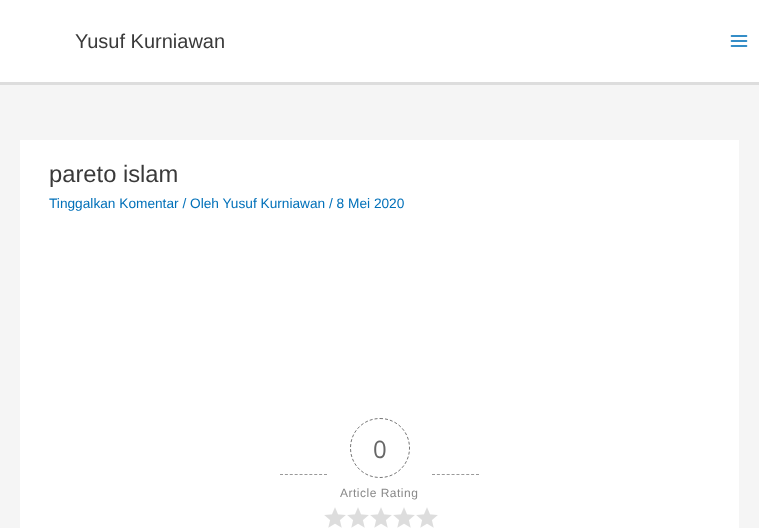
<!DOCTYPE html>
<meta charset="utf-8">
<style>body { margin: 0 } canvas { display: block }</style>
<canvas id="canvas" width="759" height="528"></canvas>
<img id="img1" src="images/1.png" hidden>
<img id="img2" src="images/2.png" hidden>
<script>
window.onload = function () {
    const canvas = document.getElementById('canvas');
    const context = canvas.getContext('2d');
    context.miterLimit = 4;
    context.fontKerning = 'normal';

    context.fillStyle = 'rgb(245, 245, 245)';
    context.fillRect(0, 0, 759, 528);
    context.fillStyle = 'rgb(255, 255, 255)';
    context.fillRect(0, 0, 759, 82);
    context.fillStyle = 'rgb(221, 221, 221)';
    context.fillRect(0, 82, 759, 3);
    context.drawImage(document.getElementById('img1'), 730, 35, 18, 12);
    context.fillStyle = 'rgb(255, 255, 255)';
    context.fillRect(20, 140, 719, 388);
    context.beginPath();
    context.moveTo(280, 474.5);
    context.lineTo(327, 474.5);
    context.strokeStyle = 'rgb(153, 153, 153)';
    context.setLineDash([3, 1.89]);
    context.stroke();
    context.beginPath();
    context.moveTo(380, 418.5);
    context.bezierCurveTo(396.5, 418.5, 409.5, 431.5, 409.5, 448);
    context.bezierCurveTo(409.5, 464.5, 396.5, 477.5, 380, 477.5);
    context.bezierCurveTo(363.5, 477.5, 350.5, 464.5, 350.5, 448);
    context.bezierCurveTo(350.5, 431.5, 363.5, 418.5, 380, 418.5);
    context.closePath();
    context.strokeStyle = 'rgb(119, 119, 119)';
    context.setLineDash([3, 2]);
    context.stroke();
    context.drawImage(document.getElementById('img2'), 324, 507, 22, 21);
    context.drawImage(document.getElementById('img2'), 347, 507, 22, 21);
    context.drawImage(document.getElementById('img2'), 370, 507, 22, 21);
    context.drawImage(document.getElementById('img2'), 393, 507, 22, 21);
    context.drawImage(document.getElementById('img2'), 416, 507, 22, 21);
    context.beginPath();
    context.moveTo(432, 474.5);
    context.lineTo(479, 474.5);
    context.strokeStyle = 'rgb(153, 153, 153)';
    context.setLineDash([3, 1.89]);
    context.stroke();
    context.font = '20px Liberation Sans';
    context.fillStyle = 'rgb(58, 58, 58)';
    context.fillText('Yusuf Kurniawan', 75, 48);
    context.font = '23.75px Liberation Sans';
    context.fillText('pareto islam', 49, 182);
    context.font = '13.7px Liberation Sans';
    context.fillStyle = 'rgb(1, 112, 185)';
    context.fillText('Tinggalkan Komentar / Oleh Yusuf Kurniawan / 8 Mei 2020', 49, 208);
    context.font = '24px Open Sans';
    context.fillStyle = 'rgb(102, 102, 102)';
    context.fillText('0', 373, 458);
    context.letterSpacing = '0.5px';
    context.font = '12px Liberation Sans';
    context.fillStyle = 'rgb(136, 136, 136)';
    context.fillText('Article Rating', 340, 497);
};
</script>
